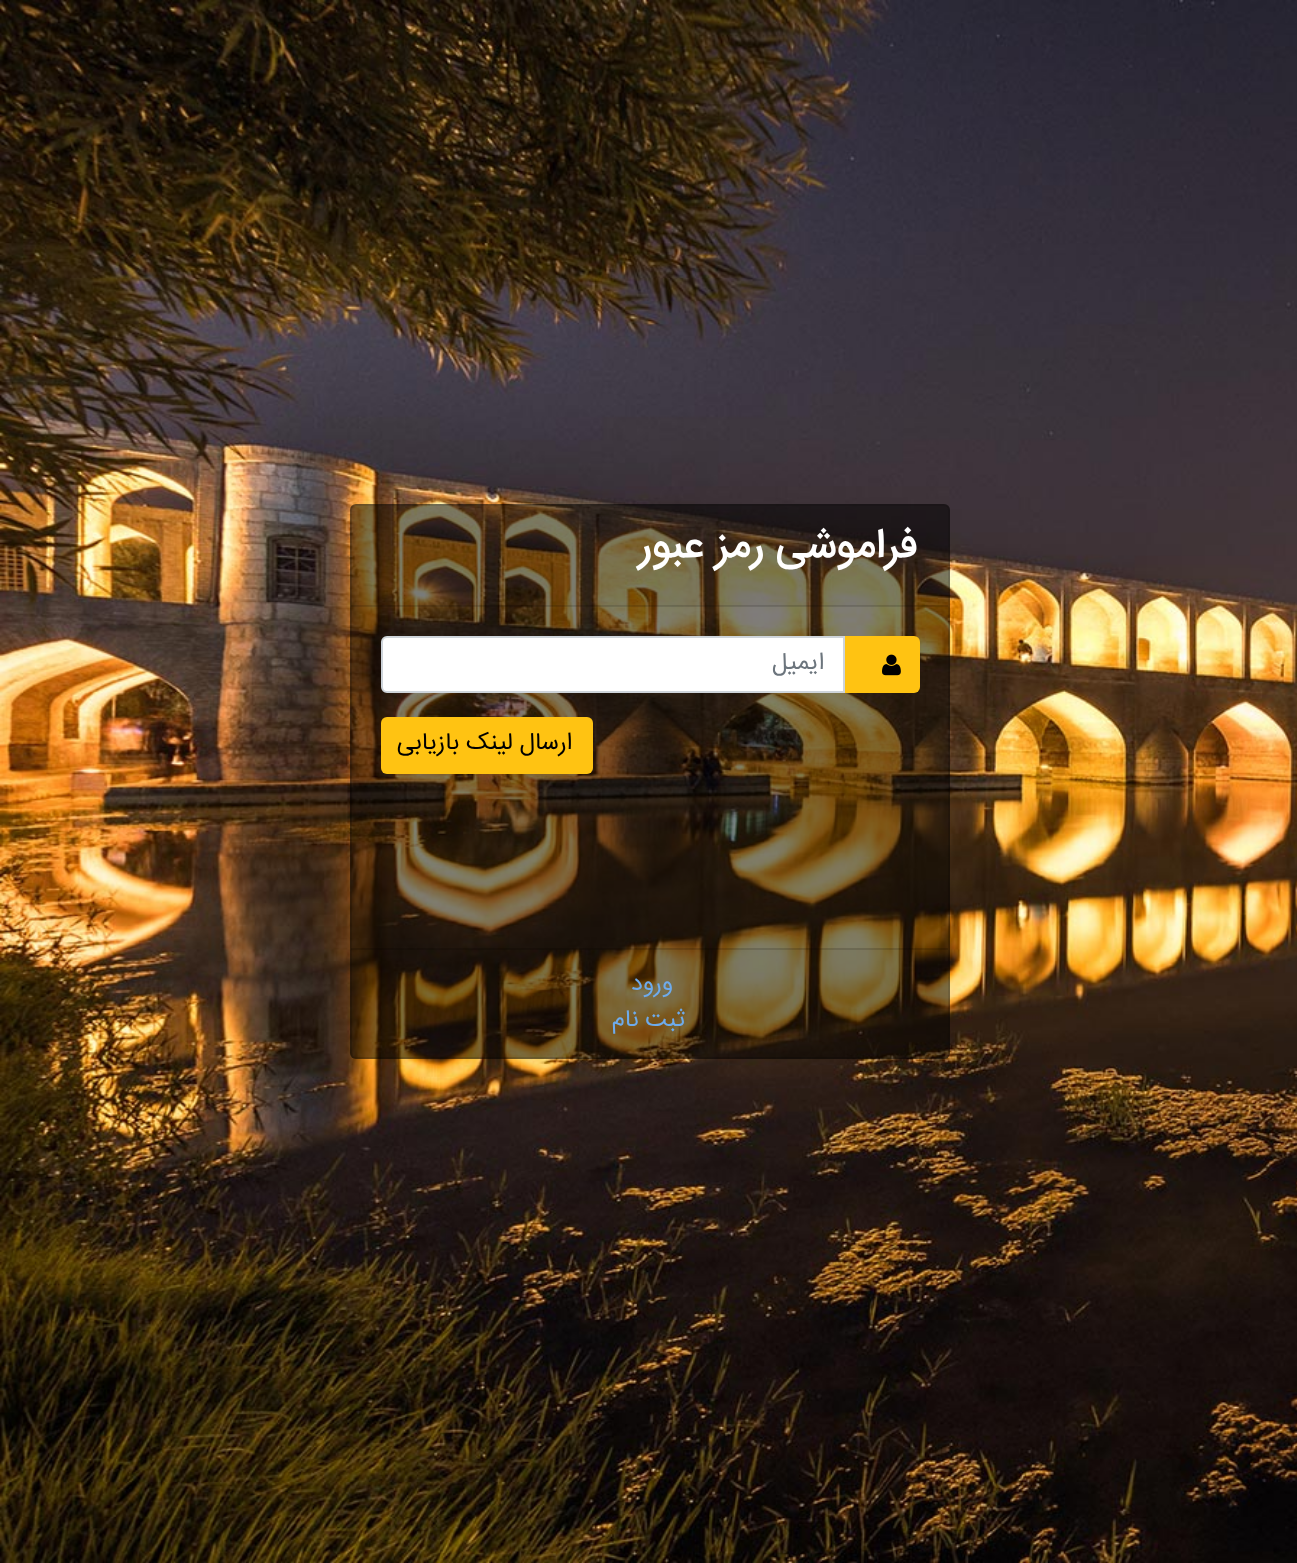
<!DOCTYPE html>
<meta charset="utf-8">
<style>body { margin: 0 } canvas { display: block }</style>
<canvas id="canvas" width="1297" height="1563"></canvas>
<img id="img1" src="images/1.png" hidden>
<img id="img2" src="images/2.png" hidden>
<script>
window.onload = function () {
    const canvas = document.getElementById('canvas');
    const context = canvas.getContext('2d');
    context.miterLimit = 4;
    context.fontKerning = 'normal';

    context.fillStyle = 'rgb(255, 255, 255)';
    context.fillRect(0, 0, 1297, 1563);
    context.drawImage(document.getElementById('img1'), 0, 0, 1297, 1563);
    context.fillStyle = 'rgba(0, 0, 0, 0.5)';
    context.beginPath();
    context.roundRect(350, 504, 600, 555, 6);
    context.fill();
    context.beginPath();
    context.roundRect(351, 505, 598, 553, 5);
    context.strokeStyle = 'rgba(0, 0, 0, 0.12)';
    context.lineWidth = 2;
    context.stroke();
    context.fillStyle = 'rgba(0, 0, 0, 0.03)';
    context.fillRect(351, 506, 597, 100);
    context.fillStyle = 'rgba(0, 0, 0, 0.12)';
    context.fillRect(351, 605, 597, 2);
    context.fillStyle = 'rgb(255, 195, 18)';
    context.beginPath();
    context.roundRect(845, 636, 75, 57, [0, 6, 6, 0]);
    context.fill();
    context.drawImage(document.getElementById('img2'), 882, 654, 19, 22);
    context.fillStyle = 'rgb(255, 255, 255)';
    context.beginPath();
    context.roundRect(382, 637, 462, 55, [5, 0, 0, 5]);
    context.fill();
    context.strokeStyle = 'rgb(206, 212, 218)';
    context.stroke();
    context.fillStyle = 'rgb(255, 195, 18)';
    context.beginPath();
    context.roundRect(381, 717, 212, 57, 6);
    context.fill();
    context.fillStyle = 'rgba(0, 0, 0, 0.03)';
    context.fillRect(351, 948, 597, 110);
    context.fillStyle = 'rgba(0, 0, 0, 0.12)';
    context.fillRect(351, 948, 597, 2);
    context.direction = 'rtl';
    context.font = '500 42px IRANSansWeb';
    context.fillStyle = 'rgb(255, 255, 255)';
    context.fillText('فراموشی رمز عبور', 917, 557);
    context.font = '24px IRANSansWeb';
    context.fillStyle = 'rgb(108, 117, 125)';
    context.fillText('ایمیل', 824, 669);
    context.fillStyle = 'rgb(0, 0, 0)';
    context.fillText('ارسال لینک بازیابی', 572, 749);
    context.fillStyle = 'rgb(110, 171, 236)';
    context.fillText('ورود', 673, 990);
    context.fillText('ثبت نام', 685, 1026);
};
</script>
